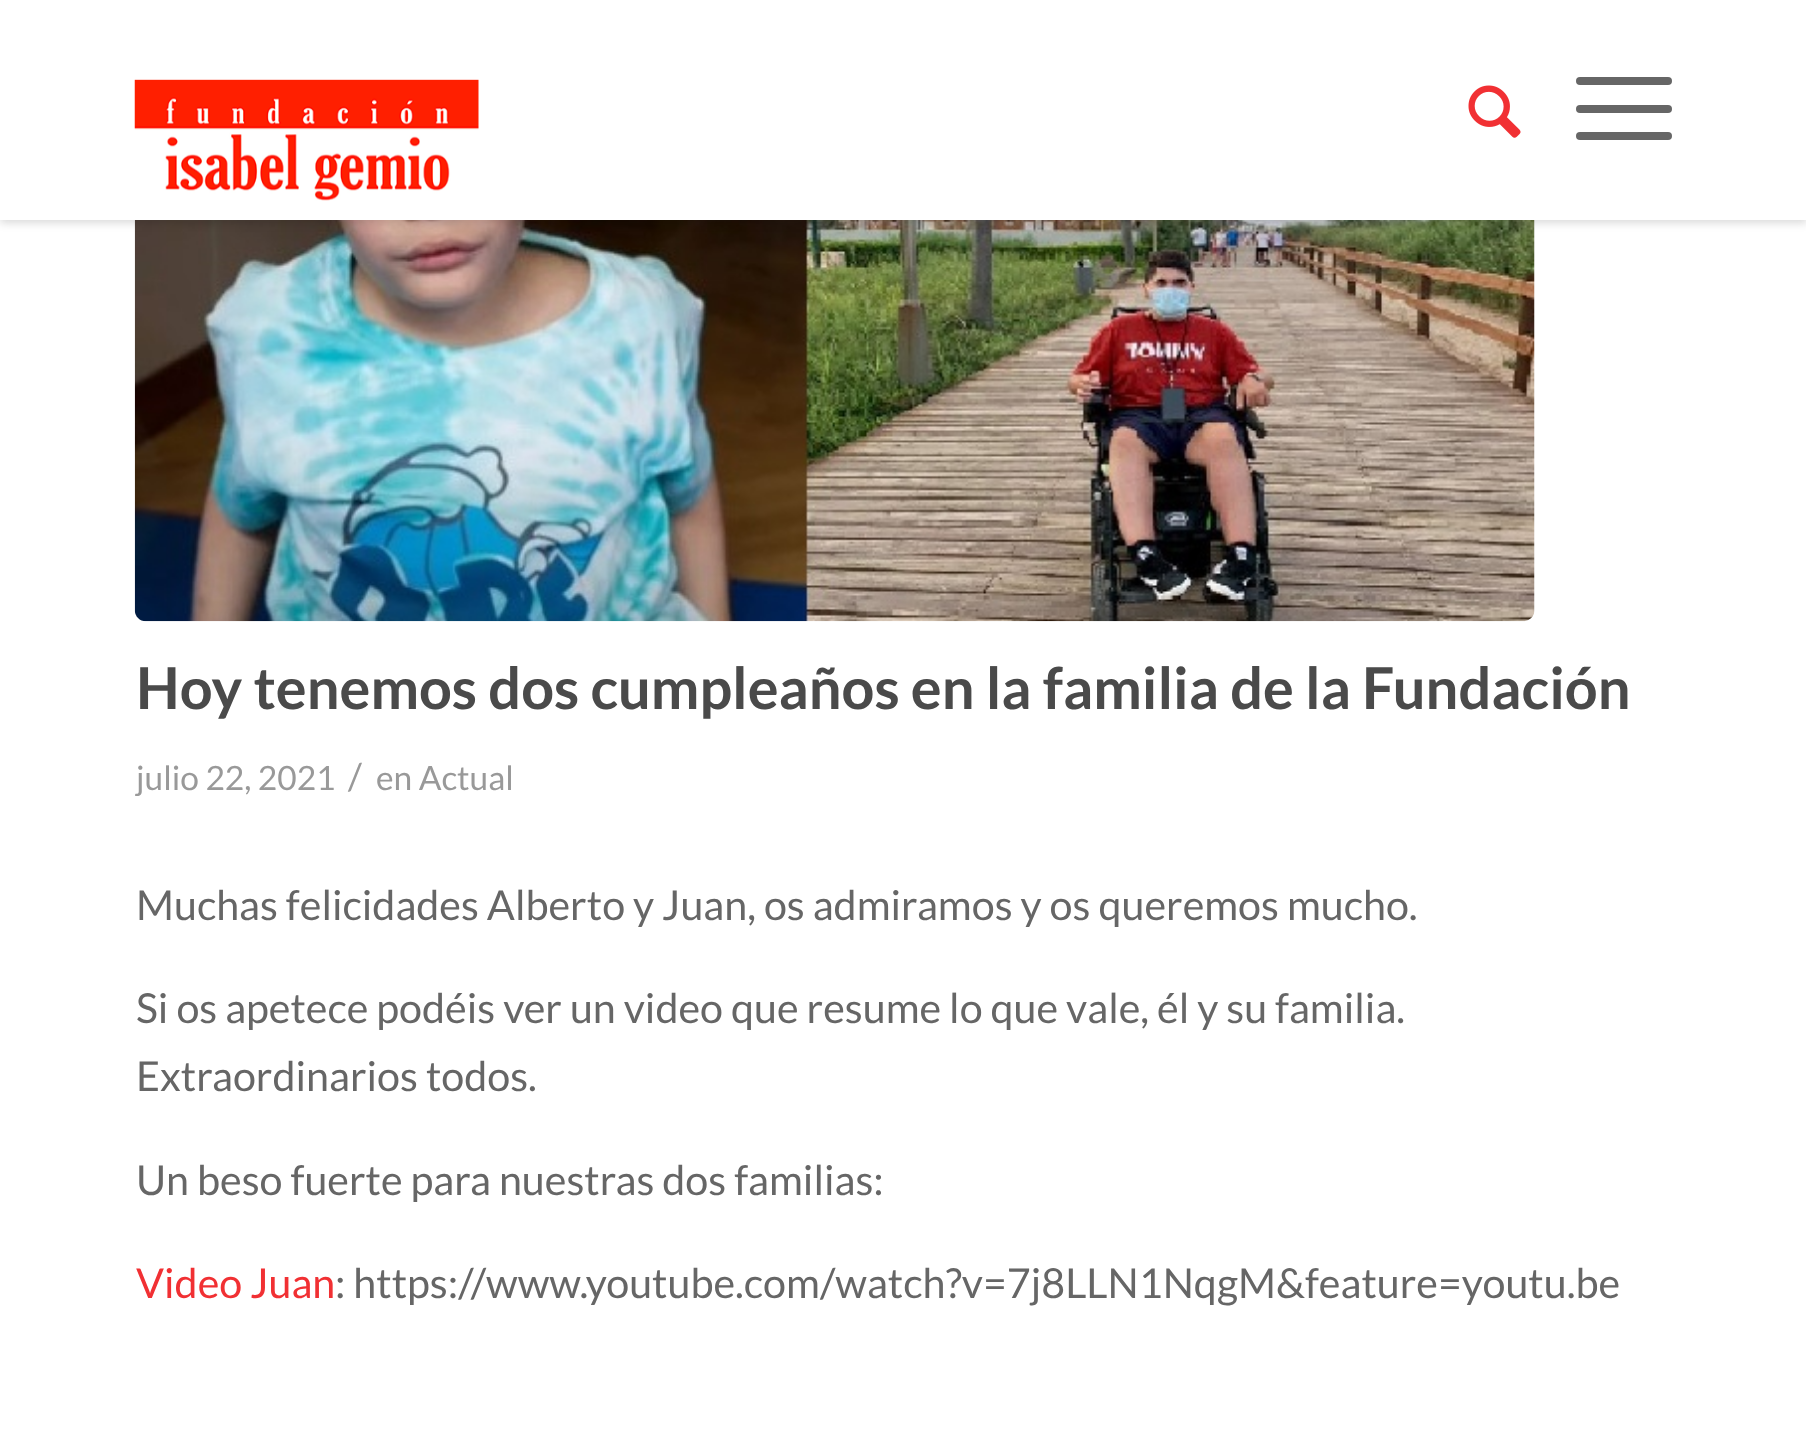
<!DOCTYPE html>
<meta charset="utf-8">
<style>body { margin: 0 } canvas { display: block }</style>
<canvas id="canvas" width="1806" height="1453"></canvas>
<img id="img1" src="images/3.png" hidden>
<img id="img2" src="images/1.png" hidden>
<img id="img3" src="images/2.png" hidden>
<script>
window.onload = function () {
    const canvas = document.getElementById('canvas');
    const context = canvas.getContext('2d');
    context.miterLimit = 4;
    context.fontKerning = 'normal';

    context.fillStyle = 'rgb(255, 255, 255)';
    context.fillRect(0, 0, 1806, 1453);
    context.drawImage(document.getElementById('img1'), 134, 220, 1401, 402);
    context.fillStyle = 'rgba(0, 0, 0, 0.15)';
    context.filter = 'blur(4px)';
    context.beginPath();
    context.rect(0, 3, 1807, 220);
    context.fill();
    context.filter = 'none';
    context.fillStyle = 'rgb(255, 255, 255)';
    context.fillRect(0, 0, 1806, 220);
    context.drawImage(document.getElementById('img2'), 134, 79, 345, 122);
    context.drawImage(document.getElementById('img3'), 1468, 85, 53, 53);
    context.fillStyle = 'rgb(102, 102, 102)';
    context.beginPath();
    context.roundRect(1576, 105, 96, 8, 4);
    context.fill();
    context.beginPath();
    context.roundRect(1576, 77, 96, 8, 4);
    context.fill();
    context.beginPath();
    context.roundRect(1576, 132, 96, 8, 4);
    context.fill();
    context.font = 'bold 57.75px Lato';
    context.fillStyle = 'rgb(74, 74, 74)';
    context.fillText('Hoy tenemos dos cumpleaños en la familia de la Fundación', 136, 709);
    context.font = '33.5px Lato';
    context.fillStyle = 'rgb(153, 153, 153)';
    context.fillText('julio 22, 2021', 136, 790);
    context.font = '37px Lato';
    context.fillText('/', 348, 790);
    context.font = '33.5px Lato';
    context.fillText('en Actual', 376, 790);
    context.font = '41.25px Lato';
    context.fillStyle = 'rgb(102, 102, 102)';
    context.fillText('Muchas felicidades Alberto y Juan, os admiramos y os queremos mucho.', 136, 920);
    context.fillText('Si os apetece podéis ver un video que resume lo que vale, él y su familia.', 136, 1023);
    context.fillText('Extraordinarios todos.', 136, 1091);
    context.fillText('Un beso fuerte para nuestras dos familias:', 136, 1195);
    context.fillStyle = 'rgb(241, 48, 51)';
    context.fillText('Video Juan', 136, 1298);
    context.fillStyle = 'rgb(102, 102, 102)';
    context.fillText(': https://www.youtube.com/watch?v=7j8LLN1NqgM&feature=youtu.be', 335, 1298);
};
</script>
